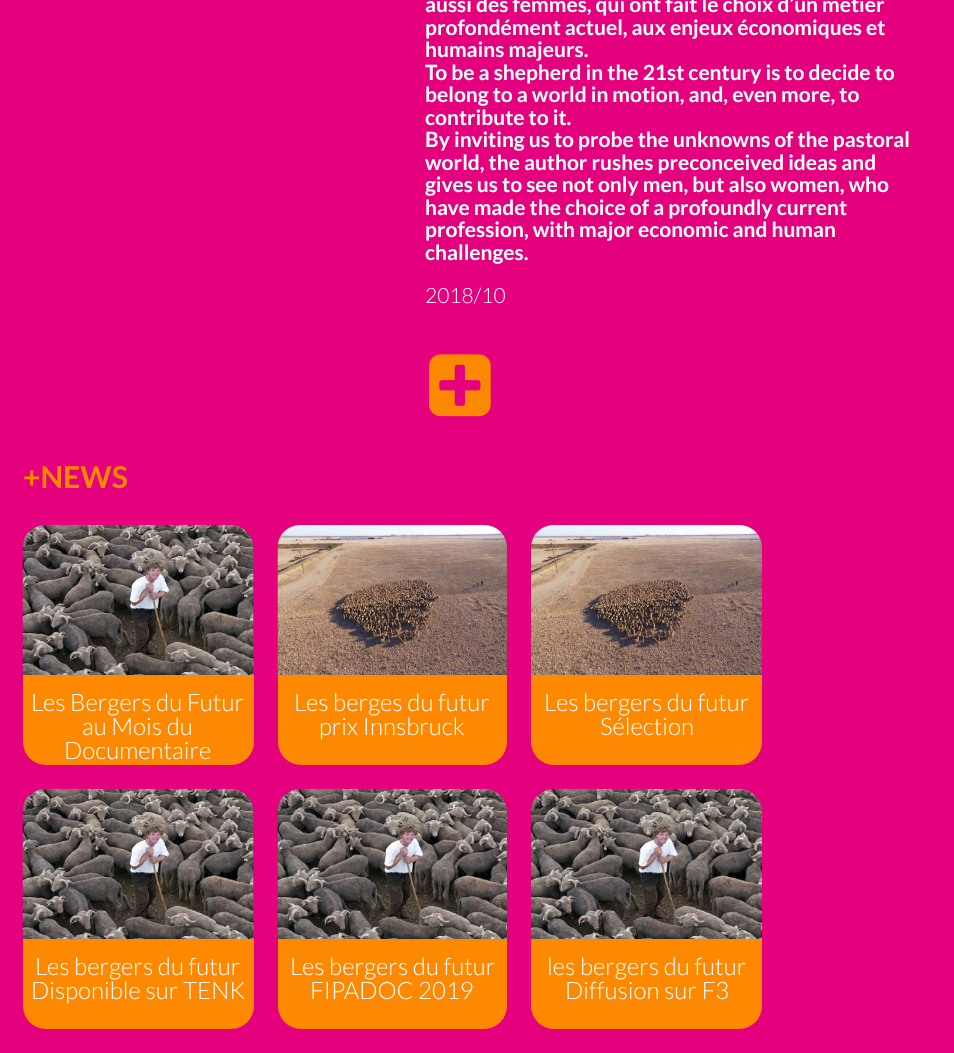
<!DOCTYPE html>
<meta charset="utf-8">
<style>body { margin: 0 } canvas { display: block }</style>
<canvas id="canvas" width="954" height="1053"></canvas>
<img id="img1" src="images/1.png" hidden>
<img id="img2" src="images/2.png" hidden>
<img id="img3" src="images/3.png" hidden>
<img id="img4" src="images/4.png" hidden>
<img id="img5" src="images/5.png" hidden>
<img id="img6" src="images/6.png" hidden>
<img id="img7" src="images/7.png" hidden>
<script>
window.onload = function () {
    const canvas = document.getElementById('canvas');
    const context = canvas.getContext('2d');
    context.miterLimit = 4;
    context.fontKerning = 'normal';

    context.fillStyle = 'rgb(229, 0, 125)';
    context.fillRect(0, 0, 954, 1053);
    context.drawImage(document.getElementById('img1'), 429, 354, 62, 63);
    context.drawImage(document.getElementById('img2'), 22, 525, 232, 150);
    context.fillStyle = 'rgb(252, 137, 1)';
    context.beginPath();
    context.roundRect(23, 675, 231, 90, [0, 0, 23, 23]);
    context.fill();
    context.drawImage(document.getElementById('img3'), 277, 525, 230, 150);
    context.beginPath();
    context.roundRect(278, 675, 229, 90, [0, 0, 23, 23]);
    context.fill();
    context.drawImage(document.getElementById('img4'), 531, 525, 231, 150);
    context.beginPath();
    context.roundRect(531, 675, 231, 90, [0, 0, 23, 23]);
    context.fill();
    context.drawImage(document.getElementById('img5'), 22, 789, 232, 150);
    context.beginPath();
    context.roundRect(23, 939, 231, 90, [0, 0, 23, 23]);
    context.fill();
    context.drawImage(document.getElementById('img6'), 277, 789, 230, 150);
    context.beginPath();
    context.roundRect(278, 939, 229, 90, [0, 0, 23, 23]);
    context.fill();
    context.drawImage(document.getElementById('img7'), 531, 789, 231, 150);
    context.beginPath();
    context.roundRect(531, 939, 231, 90, [0, 0, 23, 23]);
    context.fill();
    context.font = 'bold 21px Lato';
    context.fillStyle = 'rgb(255, 255, 255)';
    context.fillText('aussi des femmes, qui ont fait le choix d’un métier', 425, 12);
    context.fillText('profondément actuel, aux enjeux économiques et', 425, 35);
    context.fillText('humains majeurs.', 425, 57);
    context.fillText('To be a shepherd in the 21st century is to decide to', 425, 80);
    context.fillText('belong to a world in motion, and, even more, to', 425, 102);
    context.fillText('contribute to it.', 425, 125);
    context.fillText('By inviting us to probe the unknowns of the pastoral', 425, 147);
    context.fillText('world, the author rushes preconceived ideas and', 425, 170);
    context.fillText('gives us to see not only men, but also women, who', 425, 192);
    context.fillText('have made the choice of a profoundly current', 425, 215);
    context.fillText('profession, with major economic and human', 425, 237);
    context.fillText('challenges.', 425, 260);
    context.font = '300 21px Lato';
    context.fillText('2018/10', 425, 303);
    context.font = 'bold 30px Lato';
    context.fillStyle = 'rgb(252, 137, 1)';
    context.fillText('+NEWS', 23, 488);
    context.font = '300 24px Lato';
    context.fillStyle = 'rgb(255, 255, 255)';
    context.fillText('Les Bergers du Futur', 31, 711);
    context.fillText('au Mois du', 82, 735);
    context.fillText('Documentaire', 64, 759);
    context.fillText('Les berges du futur', 294, 711);
    context.fillText('prix Innsbruck', 319, 735);
    context.fillText('Les bergers du futur', 544, 711);
    context.fillText('Sélection', 600, 735);
    context.fillText('Les bergers du futur', 35, 975);
    context.fillText('Disponible sur TENK', 31, 999);
    context.fillText('Les bergers du futur', 290, 975);
    context.fillText('FIPADOC 2019', 310, 999);
    context.fillText('les bergers du futur', 547, 975);
    context.fillText('Diffusion sur F3', 565, 999);
};
</script>
